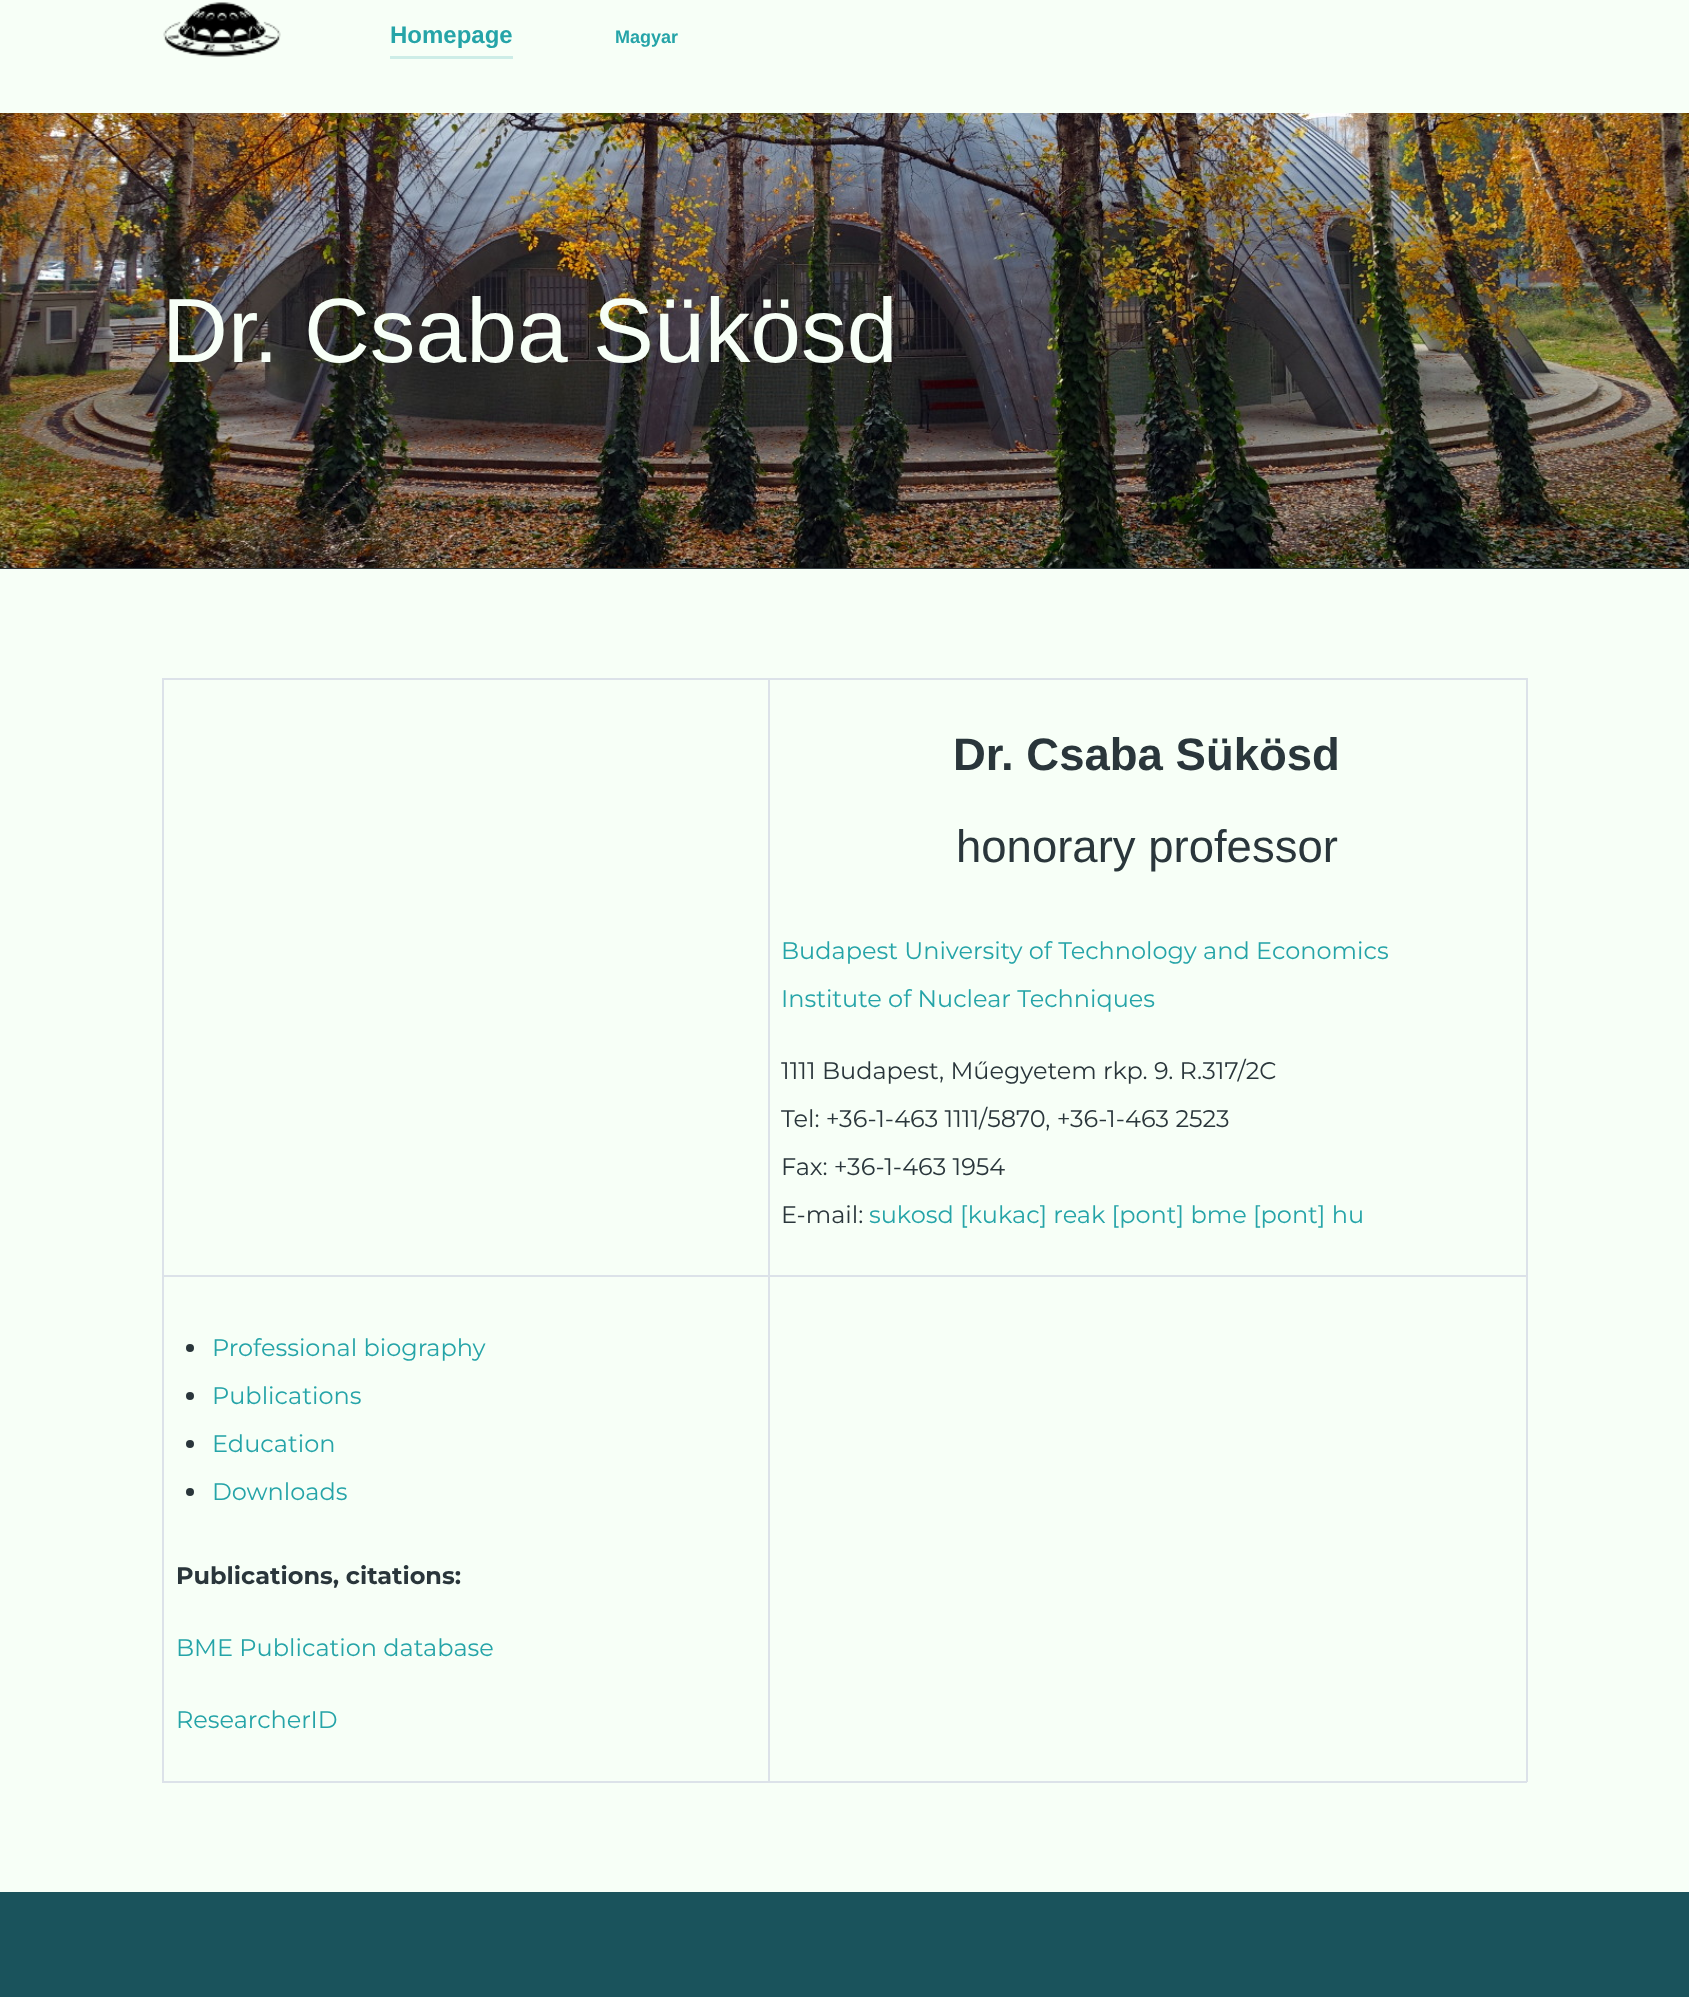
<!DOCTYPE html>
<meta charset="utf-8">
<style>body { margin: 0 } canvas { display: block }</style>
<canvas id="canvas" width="1689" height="1997"></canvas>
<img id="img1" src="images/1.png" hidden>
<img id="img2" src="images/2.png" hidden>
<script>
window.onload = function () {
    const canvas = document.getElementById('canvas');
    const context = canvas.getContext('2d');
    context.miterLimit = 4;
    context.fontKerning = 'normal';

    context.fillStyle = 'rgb(247, 255, 247)';
    context.fillRect(0, 0, 1689, 1997);
    context.drawImage(document.getElementById('img1'), 163, 2, 118, 55);
    context.fillStyle = 'rgb(205, 237, 231)';
    context.fillRect(390, 56, 123, 3);
    context.fillStyle = 'rgb(42, 54, 59)';
    context.fillRect(0, 568, 1689, 1);
    context.drawImage(document.getElementById('img2'), 0, 113, 1689, 455);
    context.fillStyle = 'rgb(220, 226, 233)';
    context.fillRect(162, 678, 1365, 2);
    context.fillRect(1526, 678, 2, 1104);
    context.fillRect(162, 1781, 1365, 2);
    context.fillRect(162, 678, 2, 1104);
    context.fillRect(162, 1275, 608, 2);
    context.fillRect(768, 1275, 2, 507);
    context.fillRect(768, 1275, 759, 2);
    context.fillRect(768, 678, 2, 599);
    context.fillStyle = 'rgb(42, 54, 59)';
    context.beginPath();
    context.arc(190, 1348, 4, 0, 2 * Math.PI);
    context.fill();
    context.beginPath();
    context.arc(190, 1396, 4, 0, 2 * Math.PI);
    context.fill();
    context.beginPath();
    context.arc(190, 1444, 4, 0, 2 * Math.PI);
    context.fill();
    context.beginPath();
    context.arc(190, 1492, 4, 0, 2 * Math.PI);
    context.fill();
    context.fillStyle = 'rgb(26, 83, 92)';
    context.fillRect(0, 1892, 1689, 105);
    context.font = 'bold 24px Liberation Sans';
    context.fillStyle = 'rgb(37, 164, 168)';
    context.fillText('Homepage', 390, 43);
    context.font = 'bold 18px Liberation Sans';
    context.fillText('Magyar', 615, 43);
    context.font = '91.25px Liberation Sans';
    context.fillStyle = 'rgb(247, 255, 247)';
    context.fillText('Dr. Csaba Sükösd', 162, 362);
    context.font = 'bold 45.5px Liberation Sans';
    context.fillStyle = 'rgb(42, 54, 59)';
    context.fillText('Dr. Csaba Sükösd', 953, 770);
    context.font = '45.5px Liberation Sans';
    context.fillText('honorary professor', 956, 862);
    context.font = '24px Montserrat';
    context.fillStyle = 'rgb(37, 164, 168)';
    context.fillText('Budapest University of Technology and Economics', 781, 959);
    context.fillText('Institute of Nuclear Techniques', 781, 1007);
    context.fillStyle = 'rgb(42, 54, 59)';
    context.fillText('1111 Budapest, Műegyetem rkp. 9. R.317/2C', 781, 1079);
    context.fillText('Tel: +36-1-463 1111/5870, +36-1-463 2523', 781, 1127);
    context.fillText('Fax: +36-1-463 1954', 781, 1175);
    context.fillText('E-mail:', 781, 1223);
    context.fillStyle = 'rgb(37, 164, 168)';
    context.fillText('sukosd [kukac] reak [pont] bme [pont] hu', 869, 1223);
    context.fillText('Professional biography', 212, 1356);
    context.fillText('Publications', 212, 1404);
    context.fillText('Education', 212, 1452);
    context.fillText('Downloads', 212, 1500);
    context.font = 'bold 24px Montserrat';
    context.fillStyle = 'rgb(42, 54, 59)';
    context.fillText('Publications, citations:', 176, 1584);
    context.font = '24px Montserrat';
    context.fillStyle = 'rgb(37, 164, 168)';
    context.fillText('BME Publication database', 176, 1656);
    context.fillText('ResearcherID', 176, 1728);
};
</script>
